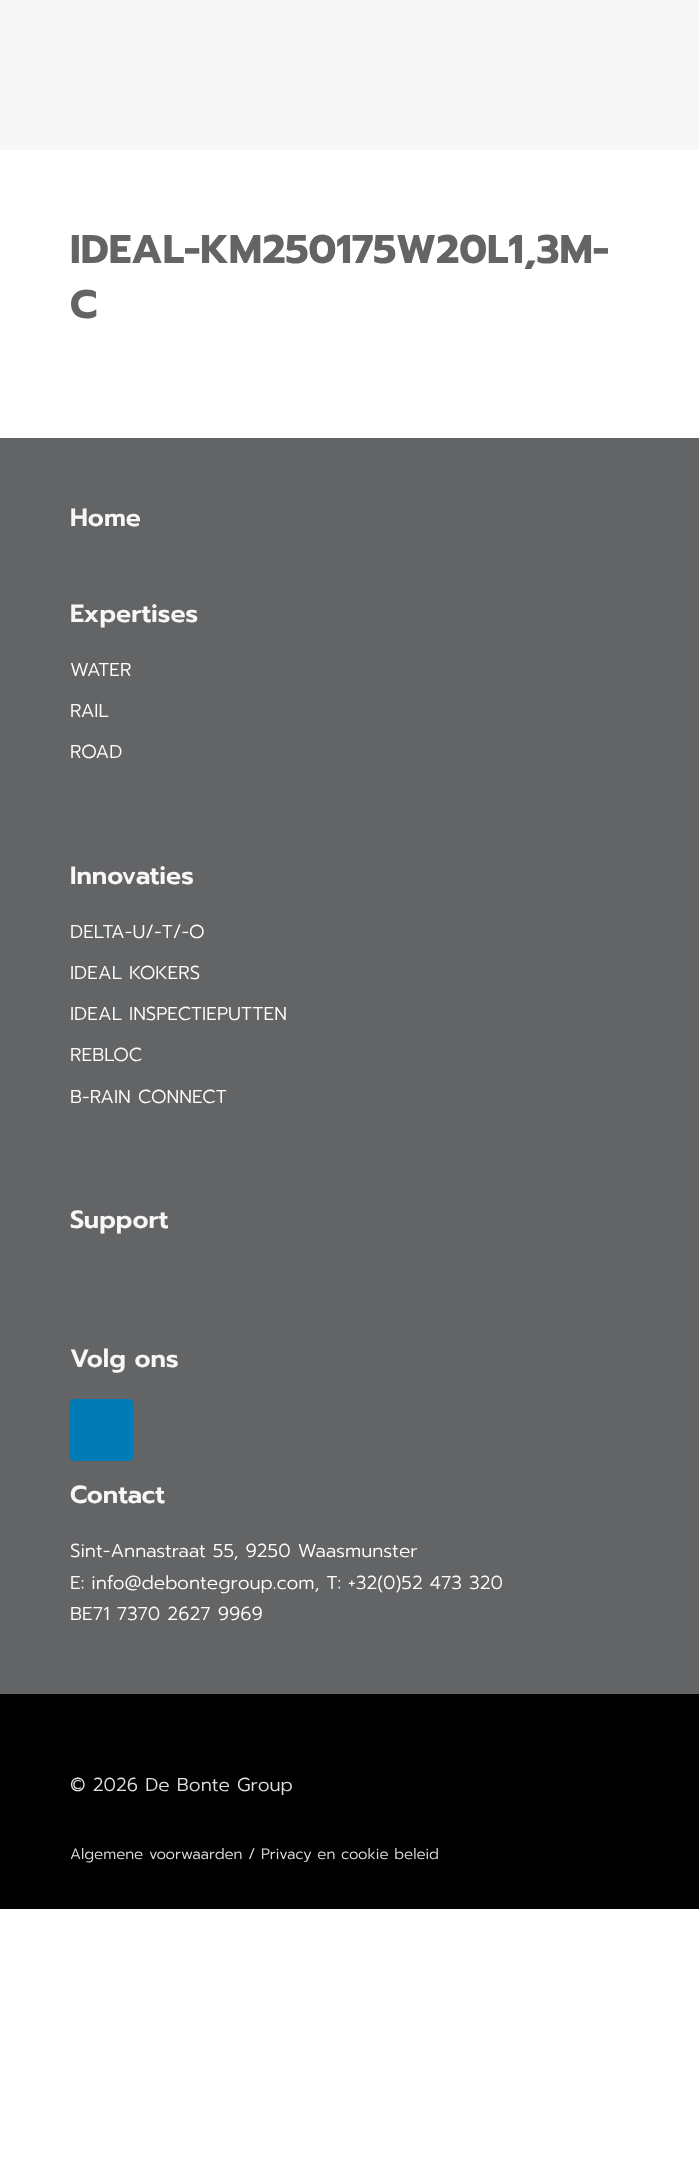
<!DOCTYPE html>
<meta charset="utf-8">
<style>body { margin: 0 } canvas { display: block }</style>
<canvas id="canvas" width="699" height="2159"></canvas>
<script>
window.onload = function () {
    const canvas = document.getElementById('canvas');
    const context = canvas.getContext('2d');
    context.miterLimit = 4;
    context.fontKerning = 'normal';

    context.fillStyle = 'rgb(255, 255, 255)';
    context.fillRect(0, 0, 699, 2159);
    context.fillStyle = 'rgb(247, 247, 247)';
    context.fillRect(0, 0, 699, 150);
    context.fillStyle = 'rgb(99, 100, 102)';
    context.fillRect(0, 438, 699, 1256);
    context.fillStyle = 'rgb(0, 123, 182)';
    context.beginPath();
    context.roundRect(70, 1399, 63, 62, 4);
    context.fill();
    context.fillStyle = 'rgb(0, 0, 0)';
    context.fillRect(0, 1694, 699, 215);
    context.font = 'bold 40px Prompt';
    context.fillStyle = 'rgb(99, 100, 102)';
    context.fillText('IDEAL-KM250175W20L1,3M-', 70, 263);
    context.fillText('C', 70, 318);
    context.font = '600 25px Prompt';
    context.fillStyle = 'rgb(247, 247, 247)';
    context.fillText('Home', 70, 526);
    context.fillText('Expertises', 70, 622);
    context.font = '300 18.75px Prompt';
    context.fillStyle = 'rgb(255, 255, 255)';
    context.fillText('WATER', 70, 676);
    context.fillText('RAIL', 70, 717);
    context.fillText('ROAD', 70, 758);
    context.font = '600 25px Prompt';
    context.fillStyle = 'rgb(247, 247, 247)';
    context.fillText('Innovaties', 70, 884);
    context.font = '300 18.75px Prompt';
    context.fillStyle = 'rgb(255, 255, 255)';
    context.fillText('DELTA-U/-T/-O', 70, 938);
    context.fillText('IDEAL KOKERS', 70, 979);
    context.fillText('IDEAL INSPECTIEPUTTEN', 70, 1020);
    context.fillText('REBLOC', 70, 1061);
    context.fillText('B-RAIN CONNECT', 70, 1103);
    context.font = '600 25px Prompt';
    context.fillStyle = 'rgb(247, 247, 247)';
    context.fillText('Support', 70, 1228);
    context.fillText('Volg ons', 70, 1367);
    context.fillText('Contact', 70, 1503);
    context.font = '300 18.75px Prompt';
    context.fillStyle = 'rgb(255, 255, 255)';
    context.fillText('Sint-Annastraat 55, 9250 Waasmunster', 70, 1557);
    context.fillText('E: info@debontegroup.com, T: +32(0)52 473 320', 70, 1589);
    context.fillText('BE71 7370 2627 9969', 70, 1620);
    context.fillStyle = 'rgb(224, 224, 224)';
    context.fillText('© 2026 De Bonte Group', 70, 1791);
    context.font = '300 15px Prompt';
    context.fillText('Algemene voorwaarden / Privacy en cookie beleid', 70, 1859);
};
</script>
